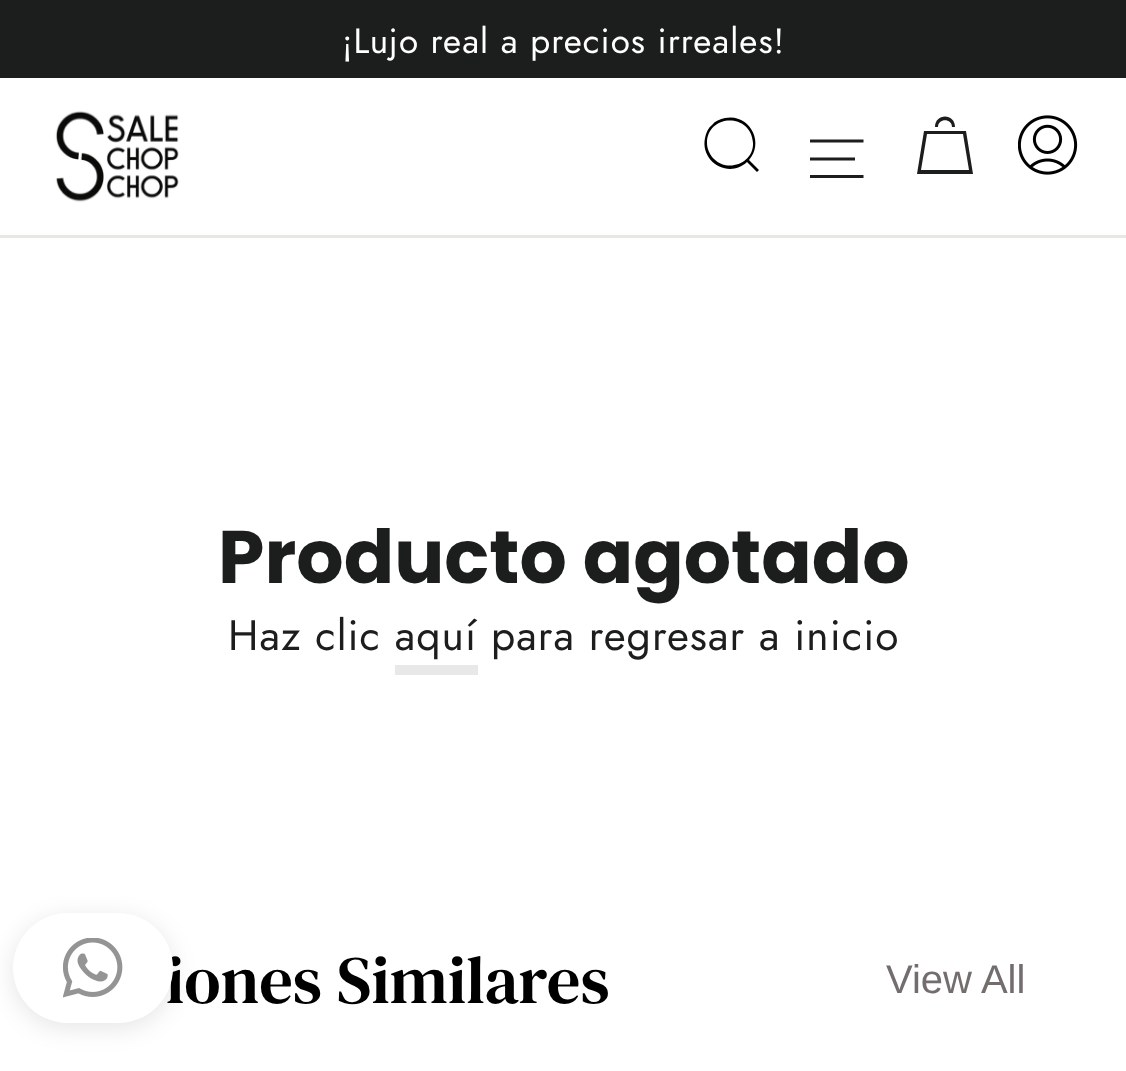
<!DOCTYPE html>
<meta charset="utf-8">
<style>body { margin: 0 } canvas { display: block }</style>
<canvas id="canvas" width="1126" height="1071"></canvas>
<img id="img1" src="images/1.png" hidden>
<img id="img2" src="images/2.png" hidden>
<img id="img3" src="images/3.png" hidden>
<script>
window.onload = function () {
    const canvas = document.getElementById('canvas');
    const context = canvas.getContext('2d');
    context.miterLimit = 4;
    context.fontKerning = 'normal';

    context.fillStyle = 'rgb(255, 255, 255)';
    context.fillRect(0, 0, 1126, 1071);
    context.fillStyle = 'rgb(28, 29, 29)';
    context.fillRect(0, 0, 1126, 78);
    context.fillStyle = 'rgb(232, 232, 225)';
    context.fillRect(0, 235, 1126, 3);
    context.drawImage(document.getElementById('img1'), 55, 111, 124, 91);
    context.fillStyle = 'rgb(0, 0, 0)';
    context.beginPath();
    context.moveTo(707, 143);
    context.bezierCurveTo(707, 114, 751, 112, 753, 143);
    context.bezierCurveTo(754, 163, 728, 173, 714, 159);
    context.bezierCurveTo(710, 155, 707, 149, 707, 143);
    context.closePath();
    context.moveTo(747, 162);
    context.bezierCurveTo(729, 179, 700, 162, 705, 138);
    context.bezierCurveTo(706, 133, 708, 128, 712, 125);
    context.bezierCurveTo(715, 121, 720, 119, 725, 118);
    context.bezierCurveTo(749, 113, 765, 142, 749, 160);
    context.lineTo(759, 170);
    context.lineTo(757, 172);
    context.closePath();
    context.fill('evenodd');
    context.beginPath();
    context.moveTo(810, 141);
    context.lineTo(863.5, 141);
    context.moveTo(810, 159);
    context.lineTo(855, 159);
    context.moveTo(810, 176.5);
    context.lineTo(863.5, 176.5);
    context.strokeStyle = 'rgb(28, 29, 29)';
    context.lineWidth = 3.2;
    context.stroke();
    context.fillStyle = 'rgb(28, 29, 29)';
    context.beginPath();
    context.moveTo(938, 127);
    context.bezierCurveTo(938, 118, 952, 118, 952, 127);
    context.lineTo(955, 127);
    context.bezierCurveTo(955, 113, 935, 113, 935, 127);
    context.closePath();
    context.moveTo(966, 131);
    context.lineTo(924, 131);
    context.lineTo(917, 174);
    context.lineTo(973, 174);
    context.closePath();
    context.moveTo(921, 170);
    context.lineTo(927, 134);
    context.lineTo(963, 134);
    context.lineTo(969, 170);
    context.closePath();
    context.fill('evenodd');
    context.drawImage(document.getElementById('img2'), 1018, 115, 60, 60);
    context.fillStyle = 'rgba(0, 0, 0, 0.1)';
    context.filter = 'blur(12.5px)';
    context.beginPath();
    context.roundRect(13, 918, 160, 110, 55);
    context.fill();
    context.filter = 'none';
    context.fillStyle = 'rgb(232, 232, 232)';
    context.fillRect(395, 665, 83, 10);
    context.letterSpacing = '1.05px';
    context.font = '35px Jost';
    context.fillStyle = 'rgb(255, 255, 255)';
    context.fillText('¡Lujo real a precios irreales!', 342, 53);
    context.letterSpacing = '0px';
    context.font = 'bold 74.4px Poppins';
    context.fillStyle = 'rgb(28, 29, 29)';
    context.fillText('Producto agotado', 218, 583);
    context.letterSpacing = '1.05px';
    context.font = '42.5px Jost';
    context.fillText('Haz clic aquí', 228, 650);
    context.fillText('para regresar a inicio', 491, 650);
    context.letterSpacing = '0px';
    context.font = '67px DM Serif Text';
    context.fillStyle = 'rgb(0, 0, 0)';
    context.fillText('iones Similares', 166, 1003);
    context.fillStyle = 'rgb(255, 255, 255)';
    context.beginPath();
    context.roundRect(13, 913, 160, 110, 55);
    context.fill();
    context.drawImage(document.getElementById('img3'), 63, 938, 60, 60);
    context.font = '40px Liberation Sans';
    context.fillStyle = 'rgb(115, 110, 109)';
    context.fillText('View All', 886, 993);
};
</script>
